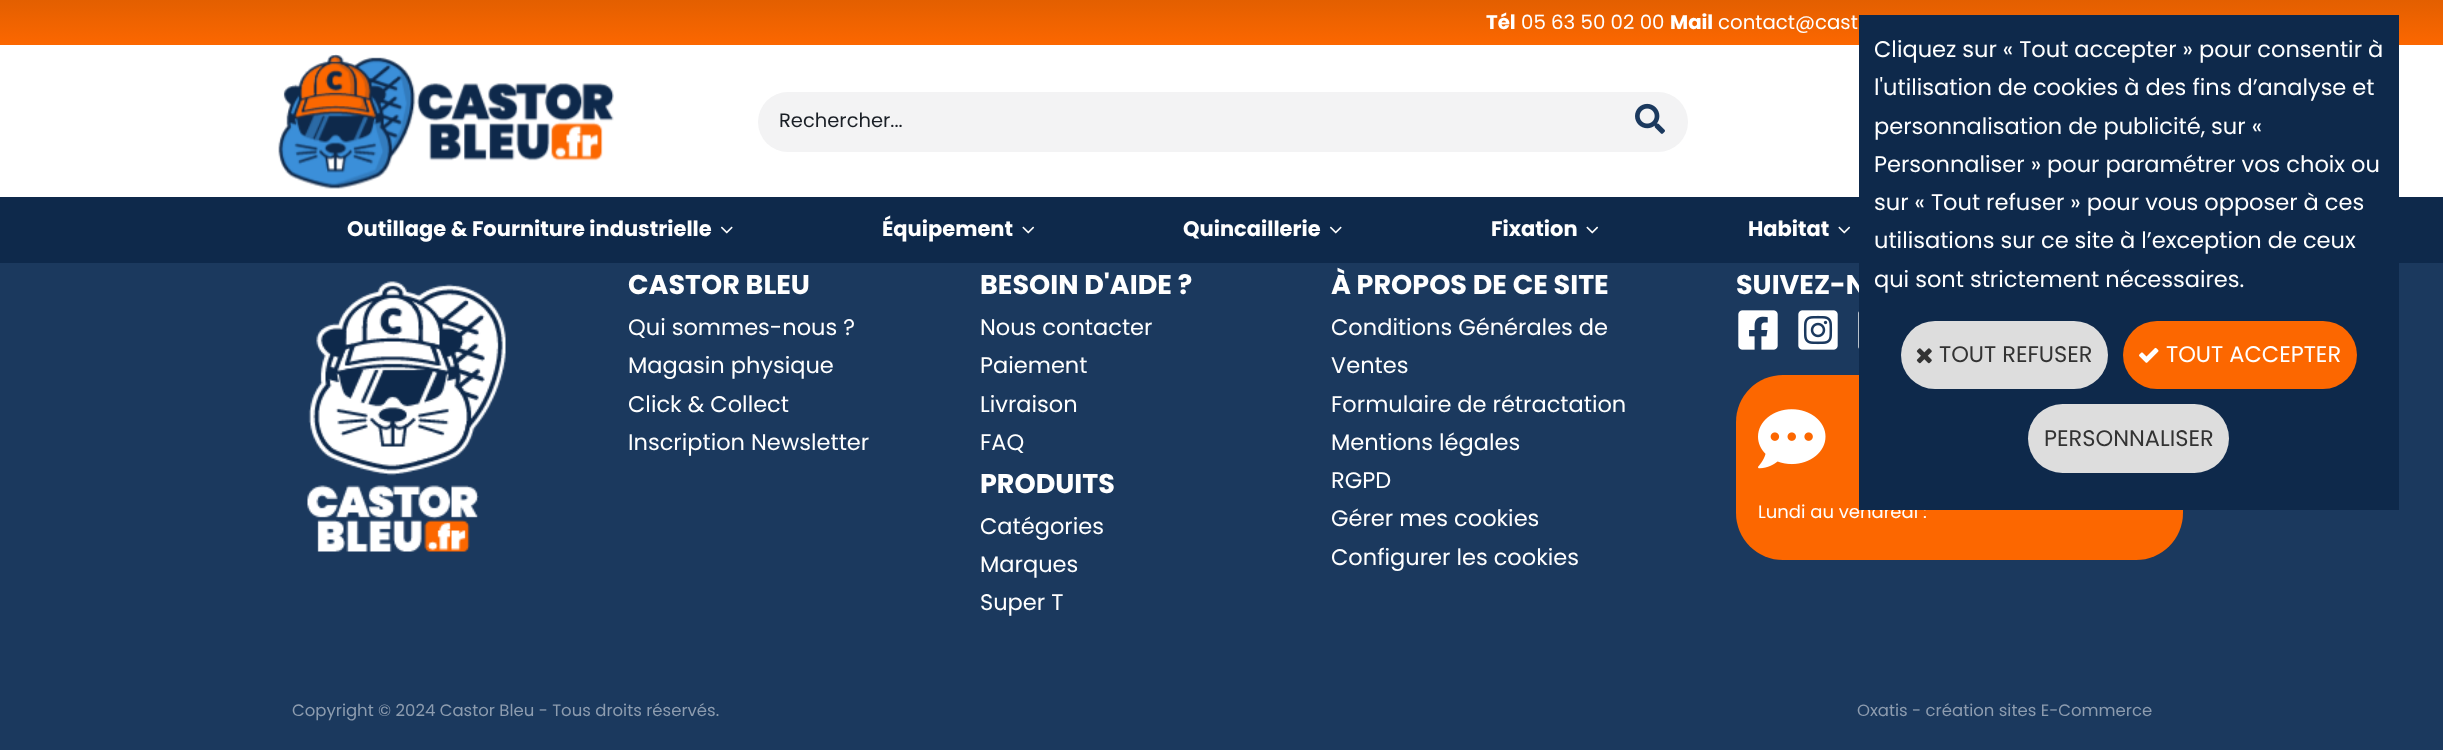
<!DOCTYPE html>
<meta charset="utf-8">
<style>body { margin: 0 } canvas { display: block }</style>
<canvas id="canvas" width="2443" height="750"></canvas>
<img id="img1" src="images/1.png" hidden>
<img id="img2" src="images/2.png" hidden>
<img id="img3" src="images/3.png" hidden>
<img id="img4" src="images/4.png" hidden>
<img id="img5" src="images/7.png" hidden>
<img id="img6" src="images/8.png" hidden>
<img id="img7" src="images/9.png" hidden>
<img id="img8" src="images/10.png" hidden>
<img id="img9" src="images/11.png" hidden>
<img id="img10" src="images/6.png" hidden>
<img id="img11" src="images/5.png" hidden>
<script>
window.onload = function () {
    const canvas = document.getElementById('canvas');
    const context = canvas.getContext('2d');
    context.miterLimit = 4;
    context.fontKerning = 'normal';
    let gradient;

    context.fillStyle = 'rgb(27, 57, 94)';
    context.fillRect(0, 0, 2443, 750);
    context.fillStyle = 'rgb(255, 255, 255)';
    context.fillRect(0, 45, 2443, 152);
    gradient = context.createLinearGradient(1222, 0, 1222, 45);
    gradient.addColorStop(0, 'rgb(227, 95, 0)');
    gradient.addColorStop(1, 'rgb(252, 103, 0)');
    context.fillStyle = gradient;
    context.fillRect(0, 0, 2443, 45);
    context.drawImage(document.getElementById('img1'), 278, 54, 336, 135);
    context.fillStyle = 'rgb(243, 243, 244)';
    context.beginPath();
    context.roundRect(758, 92, 855, 60, [30, 0, 0, 30]);
    context.fill();
    context.beginPath();
    context.roundRect(1613, 92, 75, 60, [0, 30, 30, 0]);
    context.fill();
    context.drawImage(document.getElementById('img2'), 1635, 103, 30, 31);
    context.fillStyle = 'rgb(14, 41, 75)';
    context.fillRect(0, 197, 2443, 66);
    context.drawImage(document.getElementById('img3'), 720, 226, 13, 8);
    context.drawImage(document.getElementById('img4'), 1022, 226, 13, 8);
    context.drawImage(document.getElementById('img3'), 1329, 226, 13, 8);
    context.drawImage(document.getElementById('img4'), 1586, 226, 13, 8);
    context.drawImage(document.getElementById('img4'), 1838, 226, 13, 8);
    context.drawImage(document.getElementById('img5'), 307, 281, 199, 271);
    context.drawImage(document.getElementById('img6'), 1738, 310, 40, 40);
    context.drawImage(document.getElementById('img7'), 1798, 310, 40, 40);
    context.drawImage(document.getElementById('img8'), 1858, 311, 1, 38);
    context.fillStyle = 'rgb(252, 103, 0)';
    context.beginPath();
    context.roundRect(1736, 375, 447, 185, 47);
    context.fill();
    context.drawImage(document.getElementById('img9'), 1758, 409, 68, 60);
    context.font = 'bold 19.75px Poppins';
    context.fillStyle = 'rgb(255, 255, 255)';
    context.fillText('Tél', 1486, 29);
    context.font = '19.75px Poppins';
    context.fillText('05 63 50 02 00', 1521, 29);
    context.font = 'bold 19.75px Poppins';
    context.fillText('Mail', 1670, 29);
    context.font = '19.75px Poppins';
    context.fillText('contact@cast', 1718, 29);
    context.font = '19.5px Poppins';
    context.fillStyle = 'rgb(26, 31, 38)';
    context.fillText('Rechercher...', 779, 127);
    context.font = 'bold 21px Poppins';
    context.fillStyle = 'rgb(255, 255, 255)';
    context.fillText('Outillage & Fourniture industrielle', 347, 236);
    context.fillText('Équipement', 882, 236);
    context.fillText('Quincaillerie', 1183, 236);
    context.fillText('Fixation', 1491, 236);
    context.fillText('Habitat', 1748, 236);
    context.font = 'bold 27px Poppins';
    context.fillText('CASTOR BLEU', 628, 294);
    context.font = '22.5px Poppins';
    context.fillText('Qui sommes-nous ?', 628, 335);
    context.fillText('Magasin physique', 628, 373);
    context.fillText('Click & Collect', 628, 412);
    context.fillText('Inscription Newsletter', 628, 450);
    context.font = 'bold 27px Poppins';
    context.fillText('BESOIN D\'AIDE ?', 980, 294);
    context.font = '22.5px Poppins';
    context.fillText('Nous contacter', 980, 335);
    context.fillText('Paiement', 980, 373);
    context.fillText('Livraison', 980, 412);
    context.fillText('FAQ', 980, 450);
    context.font = 'bold 27px Poppins';
    context.fillText('PRODUITS', 980, 493);
    context.font = '22.5px Poppins';
    context.fillText('Catégories', 980, 534);
    context.fillText('Marques', 980, 572);
    context.fillText('Super T', 980, 610);
    context.font = 'bold 27px Poppins';
    context.fillText('À PROPOS DE CE SITE', 1331, 294);
    context.font = '22.5px Poppins';
    context.fillText('Conditions Générales de', 1331, 335);
    context.fillText('Ventes', 1331, 373);
    context.fillText('Formulaire de rétractation', 1331, 412);
    context.fillText('Mentions légales', 1331, 450);
    context.fillText('RGPD', 1331, 488);
    context.fillText('Gérer mes cookies', 1331, 526);
    context.fillText('Configurer les cookies', 1331, 565);
    context.font = 'bold 27px Poppins';
    context.fillText('SUIVEZ-N', 1736, 294);
    context.font = '18px Poppins';
    context.fillText('Lundi au vendredi :', 1758, 518);
    context.fillStyle = 'rgb(14, 41, 75)';
    context.fillRect(1859, 15, 540, 495);
    context.fillStyle = 'rgb(221, 221, 221)';
    context.beginPath();
    context.roundRect(2028, 404, 201, 69, 34.5);
    context.fill();
    context.font = '22.5px Poppins';
    context.fillStyle = 'rgb(51, 51, 51)';
    context.fillText('PERSONNALISER', 2044, 446);
    context.fillStyle = 'rgb(252, 103, 0)';
    context.beginPath();
    context.roundRect(2123, 321, 234, 68, 34);
    context.fill();
    context.fillStyle = 'rgb(255, 255, 255)';
    context.fillText('TOUT ACCEPTER', 2166, 362);
    context.drawImage(document.getElementById('img10'), 2139, 347, 20, 16);
    context.fillStyle = 'rgb(221, 221, 221)';
    context.beginPath();
    context.roundRect(1901, 321, 207, 68, 34);
    context.fill();
    context.fillStyle = 'rgb(51, 51, 51)';
    context.fillText('TOUT REFUSER', 1939, 362);
    context.drawImage(document.getElementById('img11'), 1916, 348, 16, 16);
    context.fillStyle = 'rgb(255, 255, 255)';
    context.fillText('qui sont strictement nécessaires.', 1874, 287);
    context.fillText('utilisations sur ce site à l’exception de ceux', 1874, 248);
    context.fillText('sur « Tout refuser » pour vous opposer à ces', 1874, 210);
    context.fillText('Personnaliser » pour paramétrer vos choix ou', 1874, 172);
    context.fillText('personnalisation de publicité, sur «', 1874, 134);
    context.fillText('l\'utilisation de cookies à des fins d’analyse et', 1874, 95);
    context.fillText('Cliquez sur « Tout accepter » pour consentir à', 1874, 57);
    context.font = '16.5px Poppins';
    context.fillStyle = 'rgb(141, 156, 175)';
    context.fillText('Copyright © 2024 Castor Bleu - Tous droits réservés.', 292, 716);
    context.fillText('Oxatis - création sites E-Commerce', 1857, 716);
};
</script>
